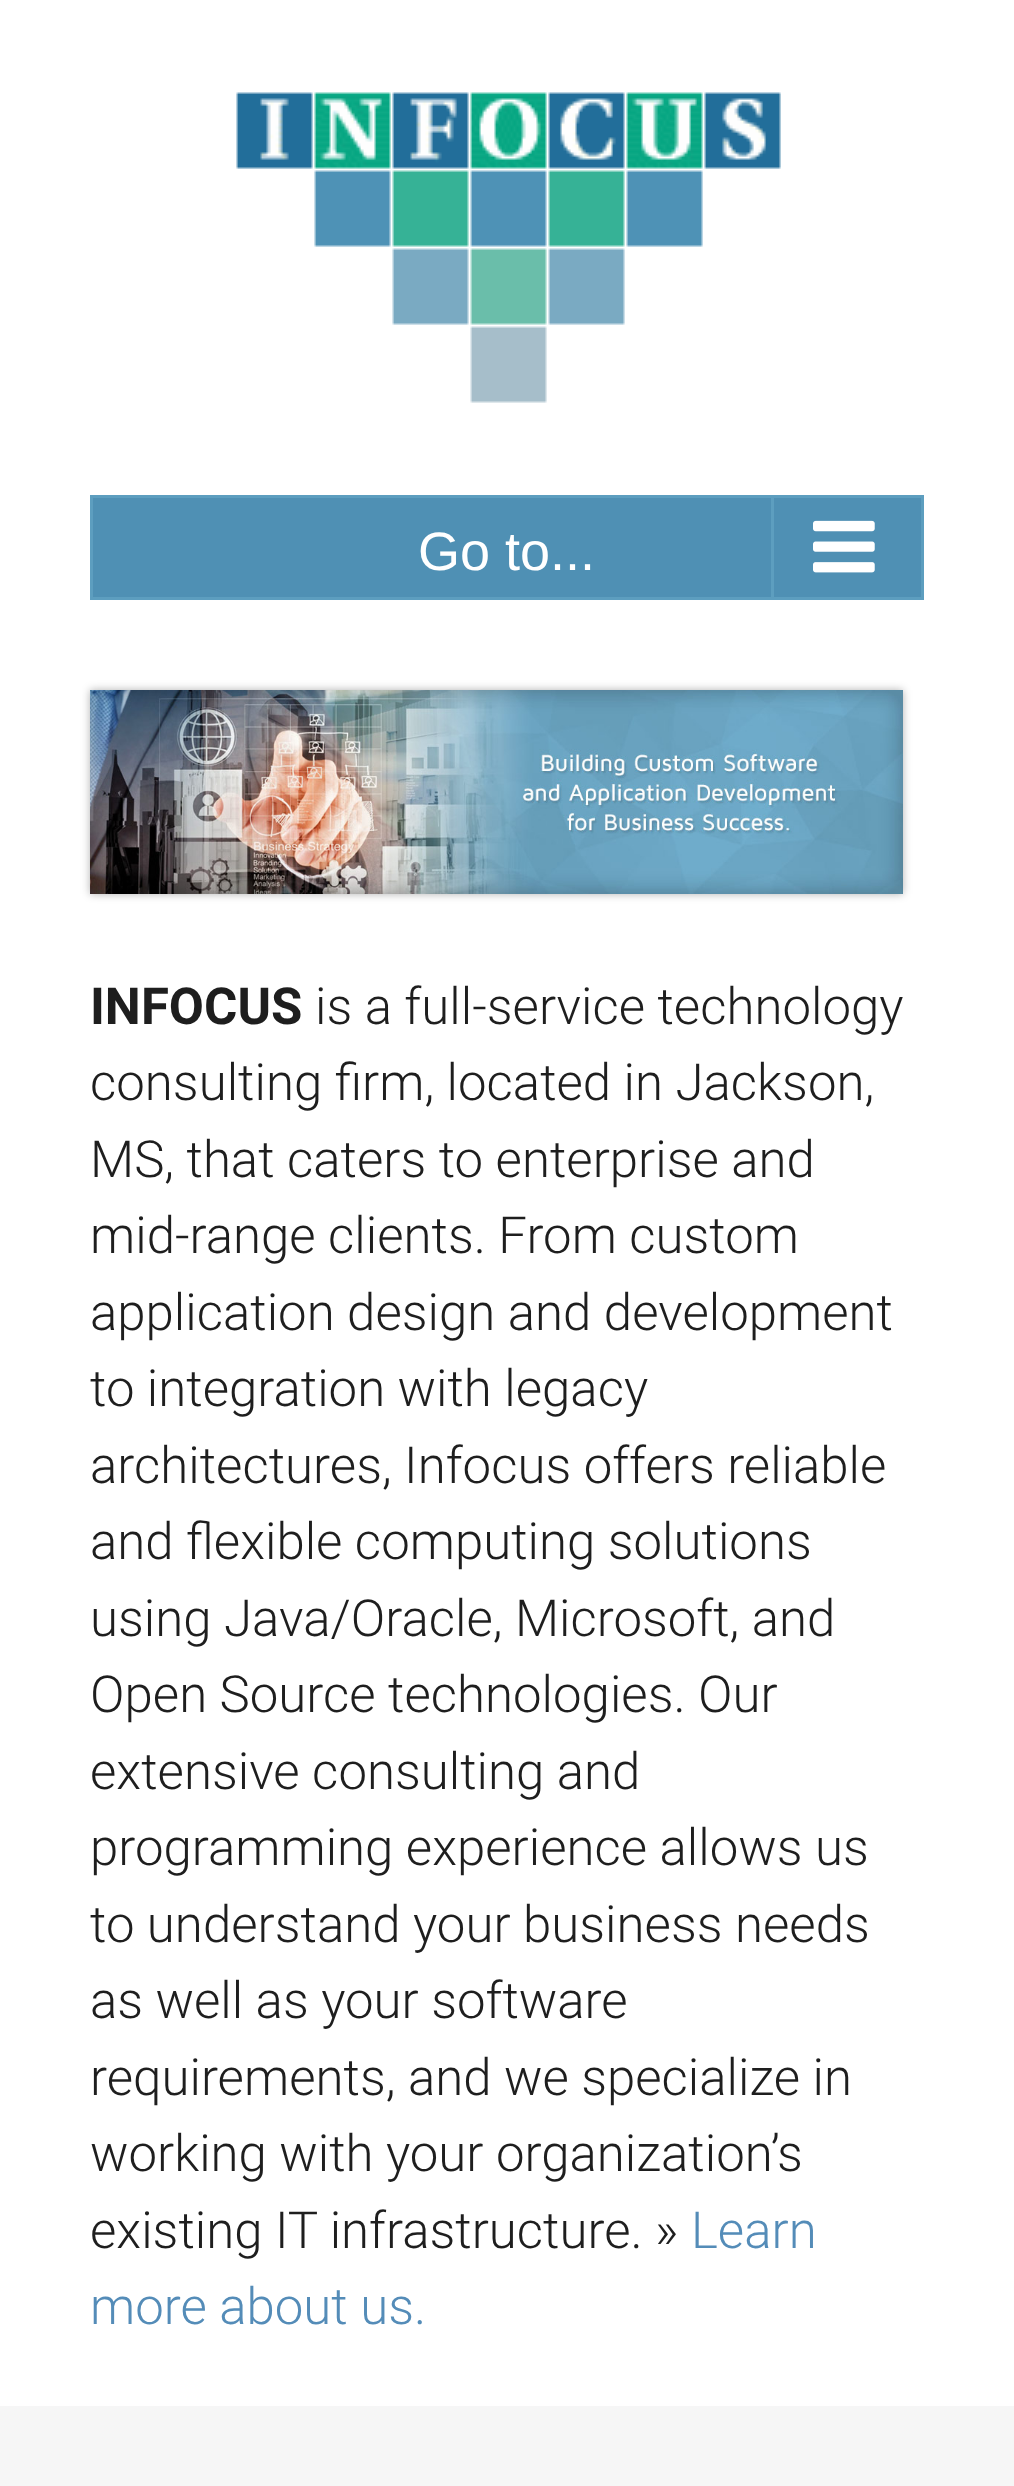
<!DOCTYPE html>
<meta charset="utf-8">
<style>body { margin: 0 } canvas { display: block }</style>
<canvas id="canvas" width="1014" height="2486"></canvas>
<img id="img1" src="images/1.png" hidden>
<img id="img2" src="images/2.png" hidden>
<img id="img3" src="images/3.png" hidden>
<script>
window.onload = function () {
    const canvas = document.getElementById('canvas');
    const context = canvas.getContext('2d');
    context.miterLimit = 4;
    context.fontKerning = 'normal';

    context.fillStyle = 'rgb(255, 255, 255)';
    context.fillRect(0, 0, 1014, 2486);
    context.drawImage(document.getElementById('img1'), 236, 92, 545, 311);
    context.fillStyle = 'rgb(79, 144, 180)';
    context.beginPath();
    context.rect(91.5, 496.5, 831, 102);
    context.fill();
    context.strokeStyle = 'rgb(93, 158, 191)';
    context.lineWidth = 3;
    context.stroke();
    context.fillStyle = 'rgb(93, 158, 191)';
    context.fillRect(771, 498, 3, 99);
    context.drawImage(document.getElementById('img2'), 813, 520, 62, 53);
    context.fillStyle = 'rgba(0, 0, 0, 0.3)';
    context.filter = 'blur(4.5px)';
    context.beginPath();
    context.rect(90, 690, 813, 204);
    context.fill();
    context.filter = 'none';
    context.drawImage(document.getElementById('img3'), 90, 690, 813, 204);
    context.fillStyle = 'rgb(246, 246, 246)';
    context.fillRect(0, 2406, 1014, 80);
    context.font = '54px Liberation Sans';
    context.fillStyle = 'rgb(255, 255, 255)';
    context.fillText('Go to...', 418, 570);
    context.font = 'bold 51px Roboto';
    context.fillStyle = 'rgb(30, 30, 30)';
    context.fillText('INFOCUS', 90, 1024);
    context.font = '300 51px Roboto';
    context.fillText('is a full-service technology', 315, 1024);
    context.fillText('consulting firm, located in Jackson,', 90, 1100);
    context.fillText('MS, that caters to enterprise and', 90, 1177);
    context.fillText('mid-range clients. From custom', 90, 1253);
    context.fillText('application design and development', 90, 1330);
    context.fillText('to integration with legacy', 90, 1406);
    context.fillText('architectures, Infocus offers reliable', 90, 1483);
    context.fillText('and flexible computing solutions', 90, 1559);
    context.fillText('using Java/Oracle, Microsoft, and', 90, 1636);
    context.fillText('Open Source technologies. Our', 90, 1712);
    context.fillText('extensive consulting and', 90, 1789);
    context.fillText('programming experience allows us', 90, 1865);
    context.fillText('to understand your business needs', 90, 1942);
    context.fillText('as well as your software', 90, 2018);
    context.fillText('requirements, and we specialize in', 90, 2095);
    context.fillText('working with your organization’s', 90, 2171);
    context.fillText('existing IT infrastructure. »', 90, 2248);
    context.fillStyle = 'rgb(84, 140, 184)';
    context.fillText('Learn', 691, 2248);
    context.fillText('more about us.', 90, 2324);
};
</script>
